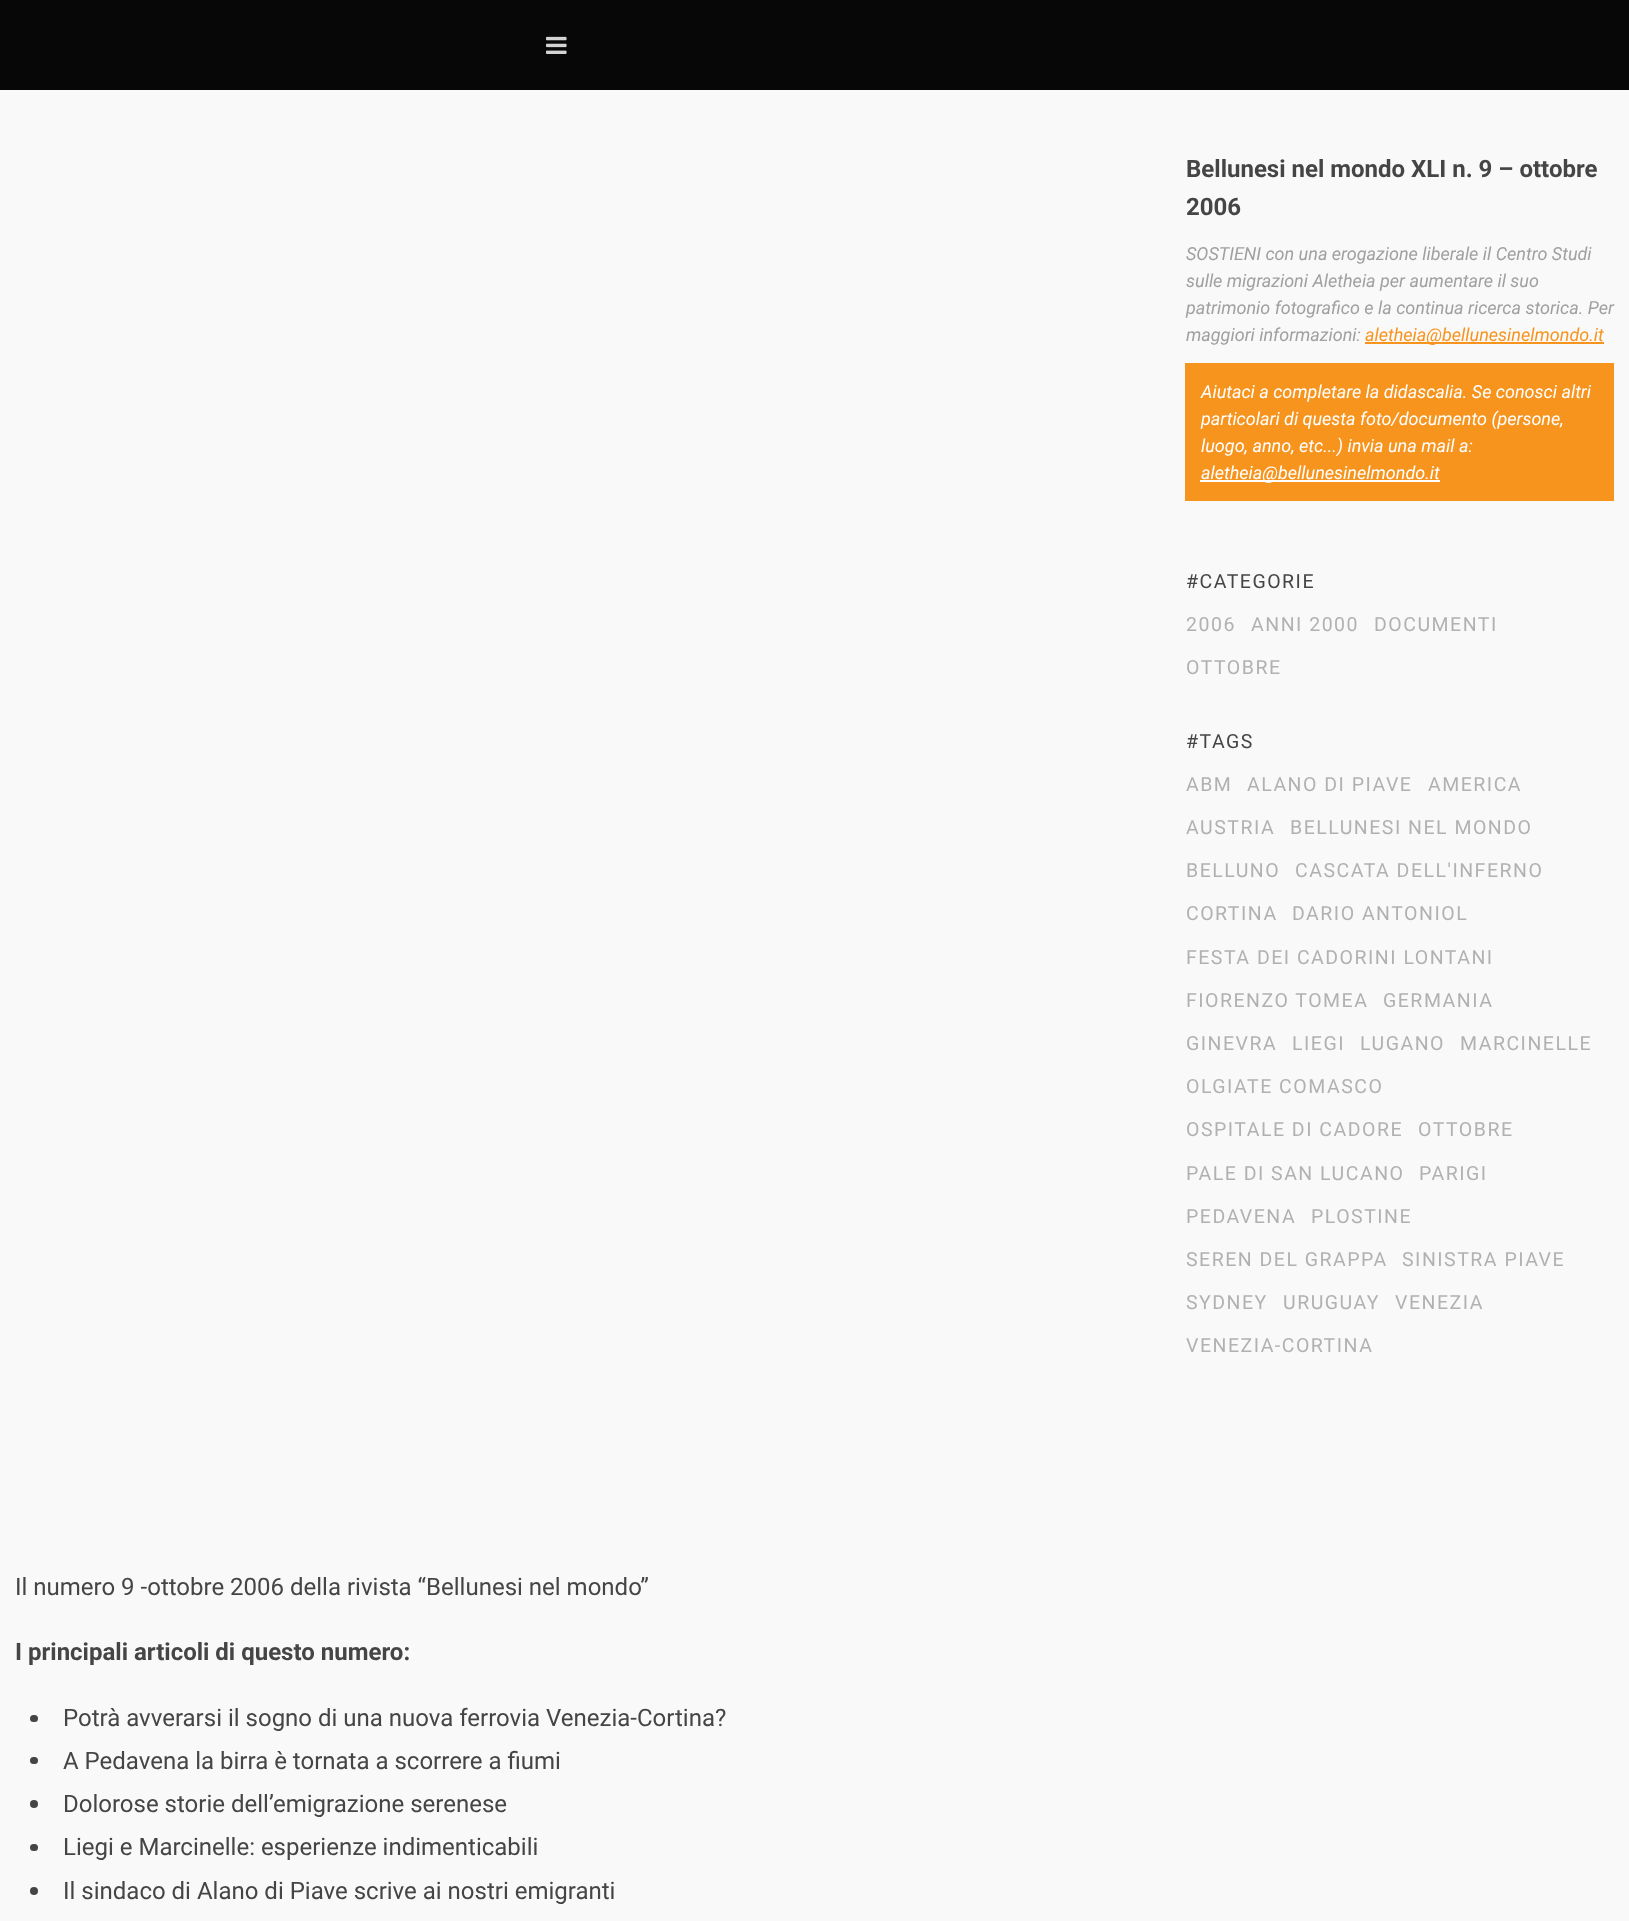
<!DOCTYPE html>
<meta charset="utf-8">
<style>body { margin: 0 } canvas { display: block }</style>
<canvas id="canvas" width="1629" height="1921"></canvas>
<img id="img1" src="images/1.png" hidden>
<script>
window.onload = function () {
    const canvas = document.getElementById('canvas');
    const context = canvas.getContext('2d');
    context.miterLimit = 4;
    context.fontKerning = 'normal';

    context.fillStyle = 'rgb(249, 249, 249)';
    context.fillRect(0, 0, 1629, 1921);
    context.fillStyle = 'rgb(7, 7, 8)';
    context.fillRect(0, 0, 1629, 90);
    context.drawImage(document.getElementById('img1'), 546, 36, 21, 18);
    context.fillStyle = 'rgb(247, 148, 30)';
    context.fillRect(1365, 342, 239, 2);
    context.fillRect(1185, 363, 429, 138);
    context.fillStyle = 'rgb(255, 255, 255)';
    context.fillRect(1200, 480, 240, 2);
    context.fillStyle = 'rgb(69, 69, 69)';
    context.beginPath();
    context.roundRect(30, 1715, 8, 7, 3.5);
    context.fill();
    context.beginPath();
    context.roundRect(30, 1757, 8, 7, 3.5);
    context.fill();
    context.beginPath();
    context.arc(34, 1804, 4, 0, 2 * Math.PI);
    context.fill();
    context.beginPath();
    context.roundRect(30, 1844, 8, 7, 3.5);
    context.fill();
    context.beginPath();
    context.arc(34, 1891, 4, 0, 2 * Math.PI);
    context.fill();
    context.font = 'bold 24px Roboto';
    context.fillText('Bellunesi nel mondo XLI n. 9 – ottobre', 1186, 177);
    context.fillText('2006', 1186, 215);
    context.font = 'italic 18px Roboto';
    context.fillStyle = 'rgb(160, 160, 160)';
    context.fillText('SOSTIENI con una erogazione liberale il Centro Studi', 1186, 260);
    context.fillText('sulle migrazioni Aletheia per aumentare il suo', 1186, 287);
    context.fillText('patrimonio fotografico e la continua ricerca storica. Per', 1186, 314);
    context.fillText('maggiori informazioni:', 1186, 341);
    context.fillStyle = 'rgb(247, 148, 30)';
    context.fillText('aletheia@bellunesinelmondo.it', 1365, 341);
    context.fillStyle = 'rgb(255, 255, 255)';
    context.fillText('Aiutaci a completare la didascalia. Se conosci altri', 1201, 398);
    context.fillText('particolari di questa foto/documento (persone,', 1201, 425);
    context.fillText('luogo, anno, etc...) invia una mail a:', 1201, 452);
    context.fillText('aletheia@bellunesinelmondo.it', 1201, 479);
    context.letterSpacing = '1.5px';
    context.font = '19.5px Roboto';
    context.fillStyle = 'rgb(69, 69, 69)';
    context.fillText('#CATEGORIE', 1186, 588);
    context.fillStyle = 'rgb(177, 177, 177)';
    context.fillText('2006', 1186, 631);
    context.fillText('ANNI 2000', 1251, 631);
    context.fillText('DOCUMENTI', 1374, 631);
    context.fillText('OTTOBRE', 1186, 674);
    context.fillStyle = 'rgb(69, 69, 69)';
    context.fillText('#TAGS', 1186, 748);
    context.fillStyle = 'rgb(177, 177, 177)';
    context.fillText('ABM', 1186, 791);
    context.fillText('ALANO DI PIAVE', 1247, 791);
    context.fillText('AMERICA', 1428, 791);
    context.fillText('AUSTRIA', 1186, 834);
    context.fillText('BELLUNESI NEL MONDO', 1290, 834);
    context.fillText('BELLUNO', 1186, 877);
    context.fillText('CASCATA DELL\'INFERNO', 1295, 877);
    context.fillText('CORTINA', 1186, 920);
    context.fillText('DARIO ANTONIOL', 1292, 920);
    context.fillText('FESTA DEI CADORINI LONTANI', 1186, 964);
    context.fillText('FIORENZO TOMEA', 1186, 1007);
    context.fillText('GERMANIA', 1383, 1007);
    context.fillText('GINEVRA', 1186, 1050);
    context.fillText('LIEGI', 1292, 1050);
    context.fillText('LUGANO', 1360, 1050);
    context.fillText('MARCINELLE', 1460, 1050);
    context.fillText('OLGIATE COMASCO', 1186, 1093);
    context.fillText('OSPITALE DI CADORE', 1186, 1136);
    context.fillText('OTTOBRE', 1418, 1136);
    context.fillText('PALE DI SAN LUCANO', 1186, 1180);
    context.fillText('PARIGI', 1419, 1180);
    context.fillText('PEDAVENA', 1186, 1223);
    context.fillText('PLOSTINE', 1311, 1223);
    context.fillText('SEREN DEL GRAPPA', 1186, 1266);
    context.fillText('SINISTRA PIAVE', 1402, 1266);
    context.fillText('SYDNEY', 1186, 1309);
    context.fillText('URUGUAY', 1283, 1309);
    context.fillText('VENEZIA', 1395, 1309);
    context.fillText('VENEZIA-CORTINA', 1186, 1352);
    context.letterSpacing = '0px';
    context.font = '24px Roboto';
    context.fillStyle = 'rgb(69, 69, 69)';
    context.fillText('Il numero 9 -ottobre 2006 della rivista “Bellunesi nel mondo”', 15, 1595);
    context.font = 'bold 24px Roboto';
    context.fillText('I principali articoli di questo numero:', 15, 1660);
    context.font = '24px Roboto';
    context.fillText('Potrà avverarsi il sogno di una nuova ferrovia Venezia-Cortina?', 63, 1726);
    context.fillText('A Pedavena la birra è tornata a scorrere a fiumi', 63, 1769);
    context.fillText('Dolorose storie dell’emigrazione serenese', 63, 1812);
    context.fillText('Liegi e Marcinelle: esperienze indimenticabili', 63, 1855);
    context.fillText('Il sindaco di Alano di Piave scrive ai nostri emigranti', 63, 1899);
};
</script>
